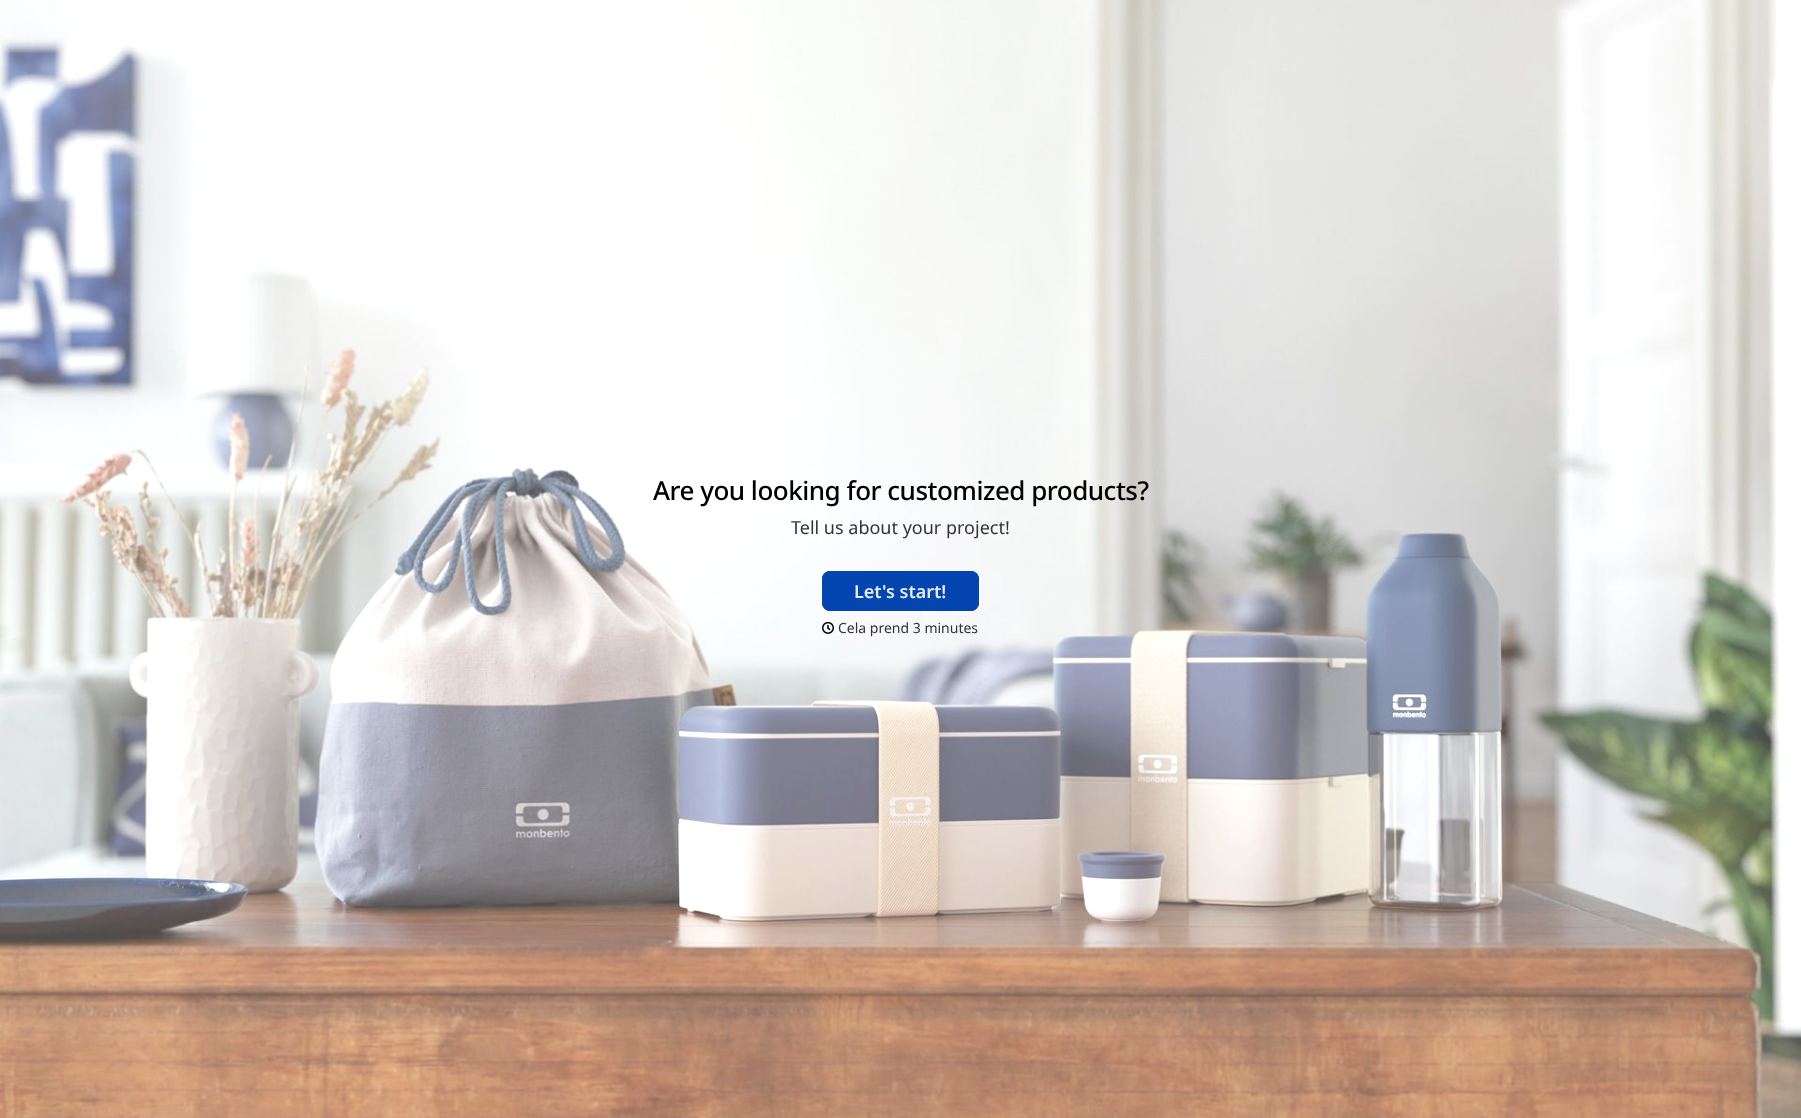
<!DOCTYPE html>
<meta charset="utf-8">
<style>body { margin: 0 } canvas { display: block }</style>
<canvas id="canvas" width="1801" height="1118"></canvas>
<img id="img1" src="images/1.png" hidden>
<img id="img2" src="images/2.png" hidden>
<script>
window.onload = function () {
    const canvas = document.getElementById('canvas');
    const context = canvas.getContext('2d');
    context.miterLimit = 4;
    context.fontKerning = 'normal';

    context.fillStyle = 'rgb(255, 255, 255)';
    context.fillRect(0, 0, 1801, 1118);
    context.drawImage(document.getElementById('img1'), 0, 0, 1801, 1118);
    context.beginPath();
    context.roundRect(822.5, 571.5, 156, 39, 7.5);
    context.strokeStyle = 'rgb(4, 69, 175)';
    context.stroke();
    context.fillStyle = 'rgb(4, 69, 175)';
    context.filter = 'blur(0.5px)';
    context.beginPath();
    context.roundRect(822, 571, 157, 40, 8);
    context.fill();
    context.filter = 'none';
    context.drawImage(document.getElementById('img2'), 822, 622, 12, 12);
    context.letterSpacing = '-0.5px';
    context.font = '500 26px Noto Sans';
    context.fillStyle = 'rgb(0, 0, 0)';
    context.fillText('Are you looking for customized products?', 653, 500);
    context.letterSpacing = '0px';
    context.font = '18px Noto Sans';
    context.fillStyle = 'rgb(51, 51, 51)';
    context.fillText('Tell us about your project!', 791, 534);
    context.font = '600 18px Noto Sans';
    context.fillStyle = 'rgb(229, 235, 247)';
    context.fillText('Let\'s start!', 854, 598);
    context.font = '14px Noto Sans';
    context.fillStyle = 'rgb(51, 51, 51)';
    context.fillText('Cela prend 3 minutes', 838, 633);
};
</script>
